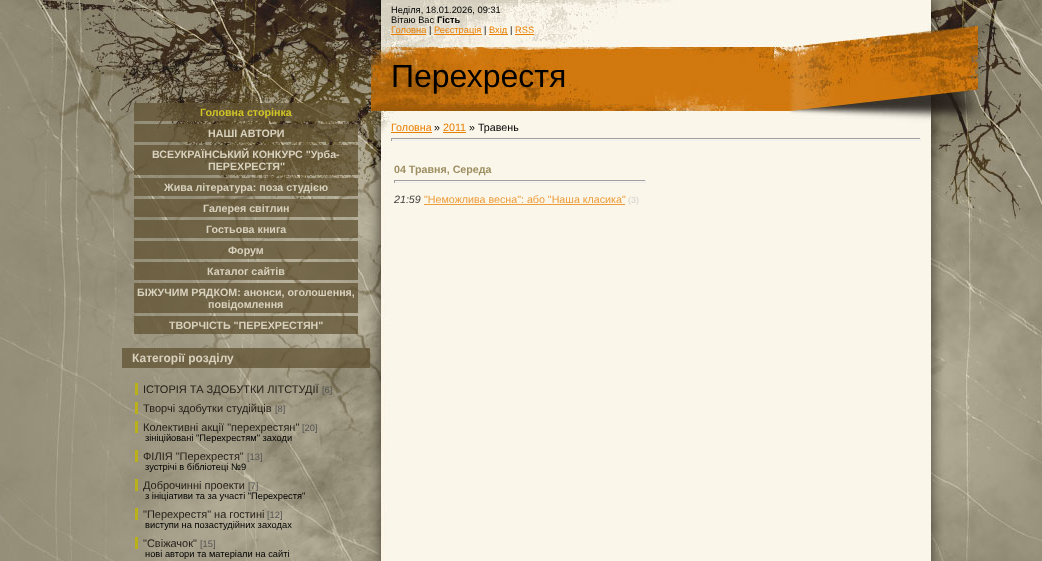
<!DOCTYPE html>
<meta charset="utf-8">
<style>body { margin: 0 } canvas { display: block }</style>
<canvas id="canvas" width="1042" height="561"></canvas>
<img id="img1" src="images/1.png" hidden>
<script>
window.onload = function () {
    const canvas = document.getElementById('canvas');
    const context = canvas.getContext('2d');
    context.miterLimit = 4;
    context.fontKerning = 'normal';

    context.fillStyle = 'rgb(255, 255, 255)';
    context.fillRect(0, 0, 1042, 561);
    context.drawImage(document.getElementById('img1'), 0, 0, 1042, 561);
    context.fillStyle = 'rgba(96, 82, 50, 0.75)';
    context.fillRect(134, 103, 224, 18);
    context.fillRect(134, 124, 224, 18);
    context.fillRect(134, 145, 224, 30);
    context.fillRect(134, 178, 224, 18);
    context.fillRect(134, 199, 224, 18);
    context.fillRect(134, 220, 224, 18);
    context.fillRect(134, 241, 224, 18);
    context.fillRect(134, 262, 224, 18);
    context.fillRect(134, 283, 224, 30);
    context.fillRect(134, 316, 224, 18);
    context.fillRect(122, 348, 248, 20);
    context.fillStyle = 'rgb(185, 176, 26)';
    context.fillRect(135, 383, 3, 12);
    context.fillRect(135, 402, 3, 12);
    context.fillRect(135, 421, 3, 12);
    context.fillRect(135, 450, 3, 12);
    context.fillRect(135, 479, 3, 12);
    context.fillRect(135, 508, 3, 12);
    context.fillRect(135, 537, 3, 12);
    context.fillStyle = 'rgb(233, 127, 0)';
    context.fillRect(391, 34, 35, 1);
    context.fillRect(434, 34, 48, 1);
    context.fillRect(489, 34, 19, 1);
    context.fillRect(515, 34, 19, 1);
    context.fillRect(391, 132, 41, 1);
    context.fillRect(443, 132, 23, 1);
    context.fillStyle = 'rgb(159, 159, 159)';
    context.fillRect(391, 138, 530, 1);
    context.fillStyle = 'rgb(238, 238, 238)';
    context.fillRect(920, 138, 1, 3);
    context.fillRect(391, 140, 530, 1);
    context.fillStyle = 'rgb(159, 159, 159)';
    context.fillRect(391, 138, 1, 3);
    context.fillRect(394, 180, 252, 1);
    context.fillStyle = 'rgb(238, 238, 238)';
    context.fillRect(645, 180, 1, 3);
    context.fillRect(394, 182, 252, 1);
    context.fillStyle = 'rgb(159, 159, 159)';
    context.fillRect(394, 180, 1, 3);
    context.fillStyle = 'rgb(237, 157, 59)';
    context.fillRect(424, 204, 201, 1);
    context.font = 'bold 10.7px Liberation Sans';
    context.fillStyle = 'rgb(209, 197, 38)';
    context.fillText('Головна сторінка', 200, 116);
    context.fillStyle = 'rgb(216, 209, 190)';
    context.fillText('НАШІ АВТОРИ', 208, 137);
    context.fillText('ВСЕУКРАЇНСЬКИЙ КОНКУРС "Урба-', 152, 158);
    context.fillText('ПЕРЕХРЕСТЯ"', 208, 170);
    context.fillText('Жива література: поза студією', 164, 191);
    context.fillText('Галерея світлин', 203, 212);
    context.fillText('Гостьова книга', 206, 233);
    context.fillText('Форум', 228, 254);
    context.fillText('Каталог сайтів', 207, 275);
    context.fillText('БІЖУЧИМ РЯДКОМ: анонси, оголошення,', 137, 296);
    context.fillText('повідомлення', 208, 308);
    context.fillText('ТВОРЧІСТЬ "ПЕРЕХРЕСТЯН"', 169, 329);
    context.font = 'bold 12px Liberation Sans';
    context.fillText('Категорії розділу', 132, 362);
    context.font = '11px Liberation Sans';
    context.fillStyle = 'rgb(35, 28, 23)';
    context.fillText('ІСТОРІЯ ТА ЗДОБУТКИ ЛІТСТУДІЇ', 143, 393);
    context.font = '9.3px Liberation Sans';
    context.fillStyle = 'rgb(85, 85, 85)';
    context.fillText('[6]', 322, 393);
    context.font = '11px Liberation Sans';
    context.fillStyle = 'rgb(35, 28, 23)';
    context.fillText('Творчі здобутки студійців', 143, 412);
    context.font = '9.3px Liberation Sans';
    context.fillStyle = 'rgb(85, 85, 85)';
    context.fillText('[8]', 275, 412);
    context.font = '11px Liberation Sans';
    context.fillStyle = 'rgb(35, 28, 23)';
    context.fillText('Колективні акції "перехрестян"', 143, 431);
    context.font = '9.3px Liberation Sans';
    context.fillStyle = 'rgb(85, 85, 85)';
    context.fillText('[20]', 302, 431);
    context.fillStyle = 'rgb(0, 0, 0)';
    context.fillText('зініційовані "Перехрестям" заходи', 145, 441);
    context.font = '11px Liberation Sans';
    context.fillStyle = 'rgb(35, 28, 23)';
    context.fillText('ФІЛІЯ "Перехрестя"', 143, 460);
    context.font = '9.3px Liberation Sans';
    context.fillStyle = 'rgb(85, 85, 85)';
    context.fillText('[13]', 247, 460);
    context.fillStyle = 'rgb(0, 0, 0)';
    context.fillText('зустрічі в бібліотеці №9', 145, 470);
    context.font = '11px Liberation Sans';
    context.fillStyle = 'rgb(35, 28, 23)';
    context.fillText('Доброчинні проекти', 143, 489);
    context.font = '9.3px Liberation Sans';
    context.fillStyle = 'rgb(85, 85, 85)';
    context.fillText('[7]', 248, 489);
    context.fillStyle = 'rgb(0, 0, 0)';
    context.fillText('з ініціативи та за участі "Перехрестя"', 145, 499);
    context.font = '11px Liberation Sans';
    context.fillStyle = 'rgb(35, 28, 23)';
    context.fillText('"Перехрестя" на гостині', 143, 518);
    context.font = '9.3px Liberation Sans';
    context.fillStyle = 'rgb(85, 85, 85)';
    context.fillText('[12]', 267, 518);
    context.fillStyle = 'rgb(0, 0, 0)';
    context.fillText('виступи на позастудійних заходах', 145, 528);
    context.font = '11px Liberation Sans';
    context.fillStyle = 'rgb(35, 28, 23)';
    context.fillText('"Свіжачок"', 143, 547);
    context.font = '9.3px Liberation Sans';
    context.fillStyle = 'rgb(85, 85, 85)';
    context.fillText('[15]', 200, 547);
    context.fillStyle = 'rgb(0, 0, 0)';
    context.fillText('нові автори та матеріали на сайті', 145, 557);
    context.fillText('Неділя, 18.01.2026, 09:31', 391, 13);
    context.fillText('Вітаю Вас', 391, 23);
    context.font = 'bold 9.3px Liberation Sans';
    context.fillText('Гість', 437, 23);
    context.font = '9.3px Liberation Sans';
    context.fillStyle = 'rgb(233, 127, 0)';
    context.fillText('Головна', 391, 33);
    context.fillStyle = 'rgb(0, 0, 0)';
    context.fillText('|', 429, 33);
    context.fillStyle = 'rgb(233, 127, 0)';
    context.fillText('Реєстрація', 434, 33);
    context.fillStyle = 'rgb(0, 0, 0)';
    context.fillText('|', 484, 33);
    context.fillStyle = 'rgb(233, 127, 0)';
    context.fillText('Вхід', 489, 33);
    context.fillStyle = 'rgb(0, 0, 0)';
    context.fillText('|', 510, 33);
    context.fillStyle = 'rgb(233, 127, 0)';
    context.fillText('RSS', 515, 33);
    context.font = '32px Liberation Sans';
    context.fillStyle = 'rgb(0, 0, 0)';
    context.fillText('Перехрестя', 391, 87);
    context.font = '10.7px Liberation Sans';
    context.fillStyle = 'rgb(233, 127, 0)';
    context.fillText('Головна', 391, 131);
    context.fillStyle = 'rgb(0, 0, 0)';
    context.fillText('»', 434, 131);
    context.fillStyle = 'rgb(233, 127, 0)';
    context.fillText('2011', 443, 131);
    context.fillStyle = 'rgb(0, 0, 0)';
    context.fillText('» Травень', 469, 131);
    context.font = 'bold 10.7px Liberation Sans';
    context.fillStyle = 'rgb(157, 143, 98)';
    context.fillText('04 Травня, Середа', 394, 173);
    context.font = 'italic 10.7px Liberation Sans';
    context.fillStyle = 'rgb(63, 62, 59)';
    context.fillText('21:59', 394, 203);
    context.font = '10.7px Liberation Sans';
    context.fillStyle = 'rgb(237, 157, 59)';
    context.fillText('"Неможлива весна": або "Наша класика"', 424, 203);
    context.font = '9px Liberation Sans';
    context.fillStyle = 'rgb(209, 208, 205)';
    context.fillText('(3)', 628, 203);
};
</script>
